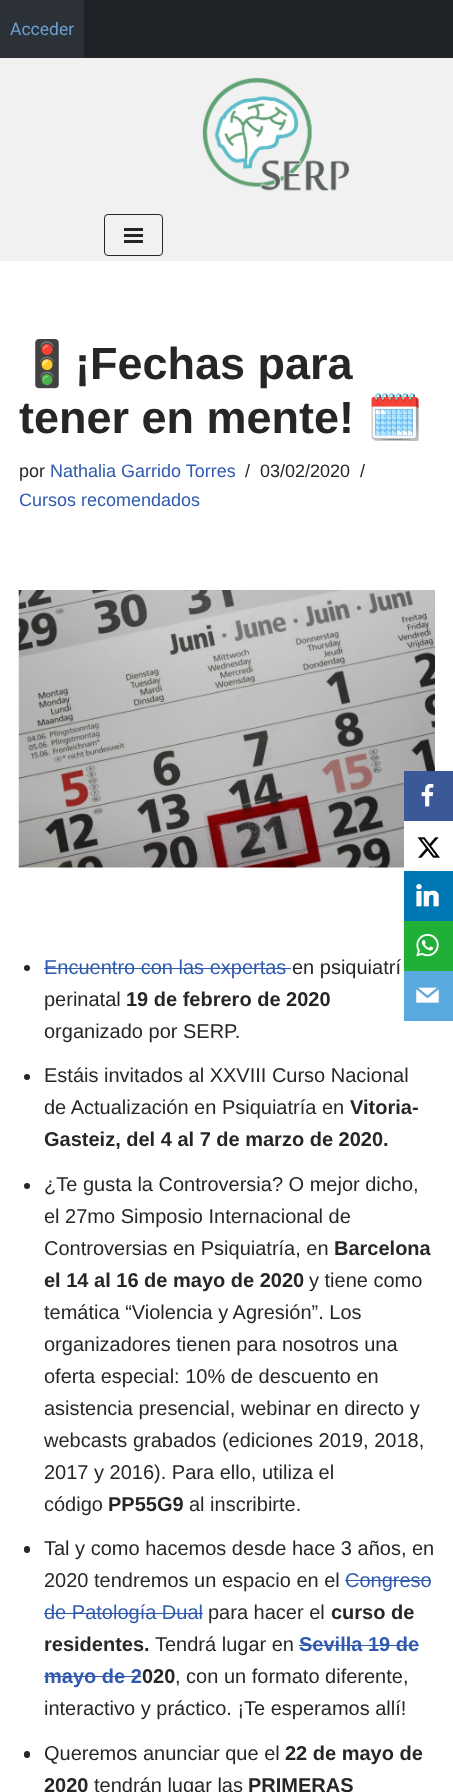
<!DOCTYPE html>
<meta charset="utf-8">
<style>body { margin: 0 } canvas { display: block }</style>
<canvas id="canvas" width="453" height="1792"></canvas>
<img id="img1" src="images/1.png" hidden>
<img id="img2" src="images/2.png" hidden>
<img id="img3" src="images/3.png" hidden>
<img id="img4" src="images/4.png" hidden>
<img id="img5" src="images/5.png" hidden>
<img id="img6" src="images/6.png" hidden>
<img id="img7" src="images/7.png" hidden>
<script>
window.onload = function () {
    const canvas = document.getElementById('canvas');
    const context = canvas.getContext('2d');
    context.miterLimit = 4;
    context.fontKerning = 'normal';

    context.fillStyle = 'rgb(255, 255, 255)';
    context.fillRect(0, 0, 453, 1792);
    context.fillStyle = 'rgb(29, 35, 39)';
    context.fillRect(84, 0, 369, 58);
    context.fillStyle = 'rgb(43, 49, 54)';
    context.fillRect(0, 0, 84, 58);
    context.fillStyle = 'rgb(241, 241, 241)';
    context.fillRect(0, 58, 453, 203);
    context.drawImage(document.getElementById('img1'), 202, 77, 148, 114);
    context.beginPath();
    context.roundRect(104.5, 214.5, 58, 41, 3.5);
    context.strokeStyle = 'rgb(39, 38, 38)';
    context.stroke();
    context.fillStyle = 'rgb(39, 38, 38)';
    context.fillRect(124, 228, 19, 3);
    context.fillRect(124, 234, 19, 3);
    context.fillRect(124, 240, 19, 3);
    context.drawImage(document.getElementById('img2'), 18, 590, 417, 278);
    context.beginPath();
    context.arc(27, 968, 3, 0, 2 * Math.PI);
    context.fill();
    context.fillStyle = 'rgb(47, 90, 174)';
    context.fillRect(44, 968, 247, 1);
    context.fillStyle = 'rgb(39, 38, 38)';
    context.beginPath();
    context.arc(27, 1077, 3, 0, 2 * Math.PI);
    context.fill();
    context.beginPath();
    context.arc(27, 1186, 3, 0, 2 * Math.PI);
    context.fill();
    context.beginPath();
    context.roundRect(24, 1546, 6, 7, 3);
    context.fill();
    context.fillStyle = 'rgb(47, 90, 174)';
    context.fillRect(345, 1580, 86, 1);
    context.fillRect(44, 1613, 159, 1);
    context.fillRect(299, 1645, 120, 1);
    context.fillRect(44, 1676, 97, 1);
    context.fillStyle = 'rgb(39, 38, 38)';
    context.beginPath();
    context.roundRect(24, 1751, 6, 7, 3);
    context.fill();
    context.fillStyle = 'rgb(59, 89, 152)';
    context.fillRect(404, 771, 49, 50);
    context.drawImage(document.getElementById('img3'), 421, 783, 13, 24);
    context.fillStyle = 'rgb(255, 255, 255)';
    context.fillRect(404, 821, 31, 47);
    context.drawImage(document.getElementById('img4'), 417, 837, 23, 21);
    context.fillStyle = 'rgb(0, 119, 181)';
    context.fillRect(404, 871, 49, 50);
    context.drawImage(document.getElementById('img5'), 416, 884, 23, 23);
    context.fillStyle = 'rgb(32, 176, 56)';
    context.fillRect(404, 921, 49, 50);
    context.drawImage(document.getElementById('img6'), 416, 933, 23, 24);
    context.fillStyle = 'rgb(88, 169, 222)';
    context.fillRect(404, 971, 49, 50);
    context.drawImage(document.getElementById('img7'), 416, 987, 23, 16);
    context.font = '17.5px Roboto';
    context.fillStyle = 'rgb(106, 160, 211)';
    context.fillText('Acceder', 10, 35);
    context.font = 'bold 45px Noto Color Emoji';
    context.fillStyle = 'rgb(39, 38, 38)';
    context.fillText('🚦', 19, 379);
    context.font = 'bold 45px Liberation Sans';
    context.fillText('¡Fechas para', 75, 379);
    context.fillText('tener en mente!', 19, 433);
    context.font = 'bold 45px Noto Color Emoji';
    context.fillText('🗓', 367, 433);
    context.font = '18px Liberation Sans';
    context.fillText('por', 19, 477);
    context.fillStyle = 'rgb(47, 90, 174)';
    context.fillText('Nathalia Garrido Torres', 50, 477);
    context.fillStyle = 'rgb(39, 38, 38)';
    context.fillText('/', 245, 477);
    context.fillText('03/02/2020', 260, 477);
    context.fillText('/', 360, 477);
    context.fillStyle = 'rgb(47, 90, 174)';
    context.fillText('Cursos recomendados', 19, 506);
    context.font = '20px Liberation Sans';
    context.fillText('Encuentro con las expertas', 44, 974);
    context.fillStyle = 'rgb(39, 38, 38)';
    context.fillText('en psiquiatrí', 292, 974);
    context.fillText('perinatal', 44, 1006);
    context.font = 'bold 20px Liberation Sans';
    context.fillText('19 de febrero de 2020', 126, 1006);
    context.font = '20px Liberation Sans';
    context.fillText('organizado por SERP.', 44, 1038);
    context.fillText('Estáis invitados al XXVIII Curso Nacional', 44, 1082);
    context.fillText('de Actualización en Psiquiatría en', 44, 1114);
    context.font = 'bold 20px Liberation Sans';
    context.fillText('Vitoria-', 350, 1114);
    context.fillText('Gasteiz, del 4 al 7 de marzo de 2020.', 44, 1146);
    context.font = '20px Liberation Sans';
    context.fillText('¿Te gusta la Controversia? O mejor dicho,', 44, 1191);
    context.fillText('el 27mo Simposio Internacional de', 44, 1223);
    context.fillText('Controversias en Psiquiatría, en', 44, 1255);
    context.font = 'bold 20px Liberation Sans';
    context.fillText('Barcelona', 334, 1255);
    context.fillText('el 14 al 16 de mayo de 2020', 44, 1287);
    context.font = '20px Liberation Sans';
    context.fillText('y tiene como', 309, 1287);
    context.fillText('temática “Violencia y Agresión”. Los', 44, 1319);
    context.fillText('organizadores tienen para nosotros una', 44, 1351);
    context.fillText('oferta especial: 10% de descuento en', 44, 1383);
    context.fillText('asistencia presencial, webinar en directo y', 44, 1415);
    context.fillText('webcasts grabados (ediciones 2019, 2018,', 44, 1447);
    context.fillText('2017 y 2016). Para ello, utiliza el', 44, 1479);
    context.fillText('código', 44, 1511);
    context.font = 'bold 20px Liberation Sans';
    context.fillText('PP55G9', 108, 1511);
    context.font = '20px Liberation Sans';
    context.fillText('al inscribirte.', 189, 1511);
    context.fillText('Tal y como hacemos desde hace 3 años, en', 44, 1555);
    context.fillText('2020 tendremos un espacio en el', 44, 1587);
    context.fillStyle = 'rgb(47, 90, 174)';
    context.fillText('Congreso', 345, 1587);
    context.fillText('de Patología Dual', 44, 1619);
    context.fillStyle = 'rgb(39, 38, 38)';
    context.fillText('para hacer el', 208, 1619);
    context.font = 'bold 20px Liberation Sans';
    context.fillText('curso de', 331, 1619);
    context.fillText('residentes.', 44, 1651);
    context.font = '20px Liberation Sans';
    context.fillText('Tendrá lugar en', 155, 1651);
    context.font = 'bold 20px Liberation Sans';
    context.fillStyle = 'rgb(47, 90, 174)';
    context.fillText('Sevilla 19 de', 299, 1651);
    context.fillText('mayo de 2', 44, 1683);
    context.fillStyle = 'rgb(39, 38, 38)';
    context.fillText('020', 142, 1683);
    context.font = '20px Liberation Sans';
    context.fillText(', con un formato diferente,', 175, 1683);
    context.fillText('interactivo y práctico. ¡Te esperamos allí!', 44, 1715);
    context.fillText('Queremos anunciar que el', 44, 1760);
    context.font = 'bold 20px Liberation Sans';
    context.fillText('22 de mayo de', 285, 1760);
    context.fillText('2020', 44, 1792);
    context.font = '20px Liberation Sans';
    context.fillText('tendrán lugar las', 94, 1792);
    context.font = 'bold 20px Liberation Sans';
    context.fillText('PRIMERAS', 248, 1792);
};
</script>
